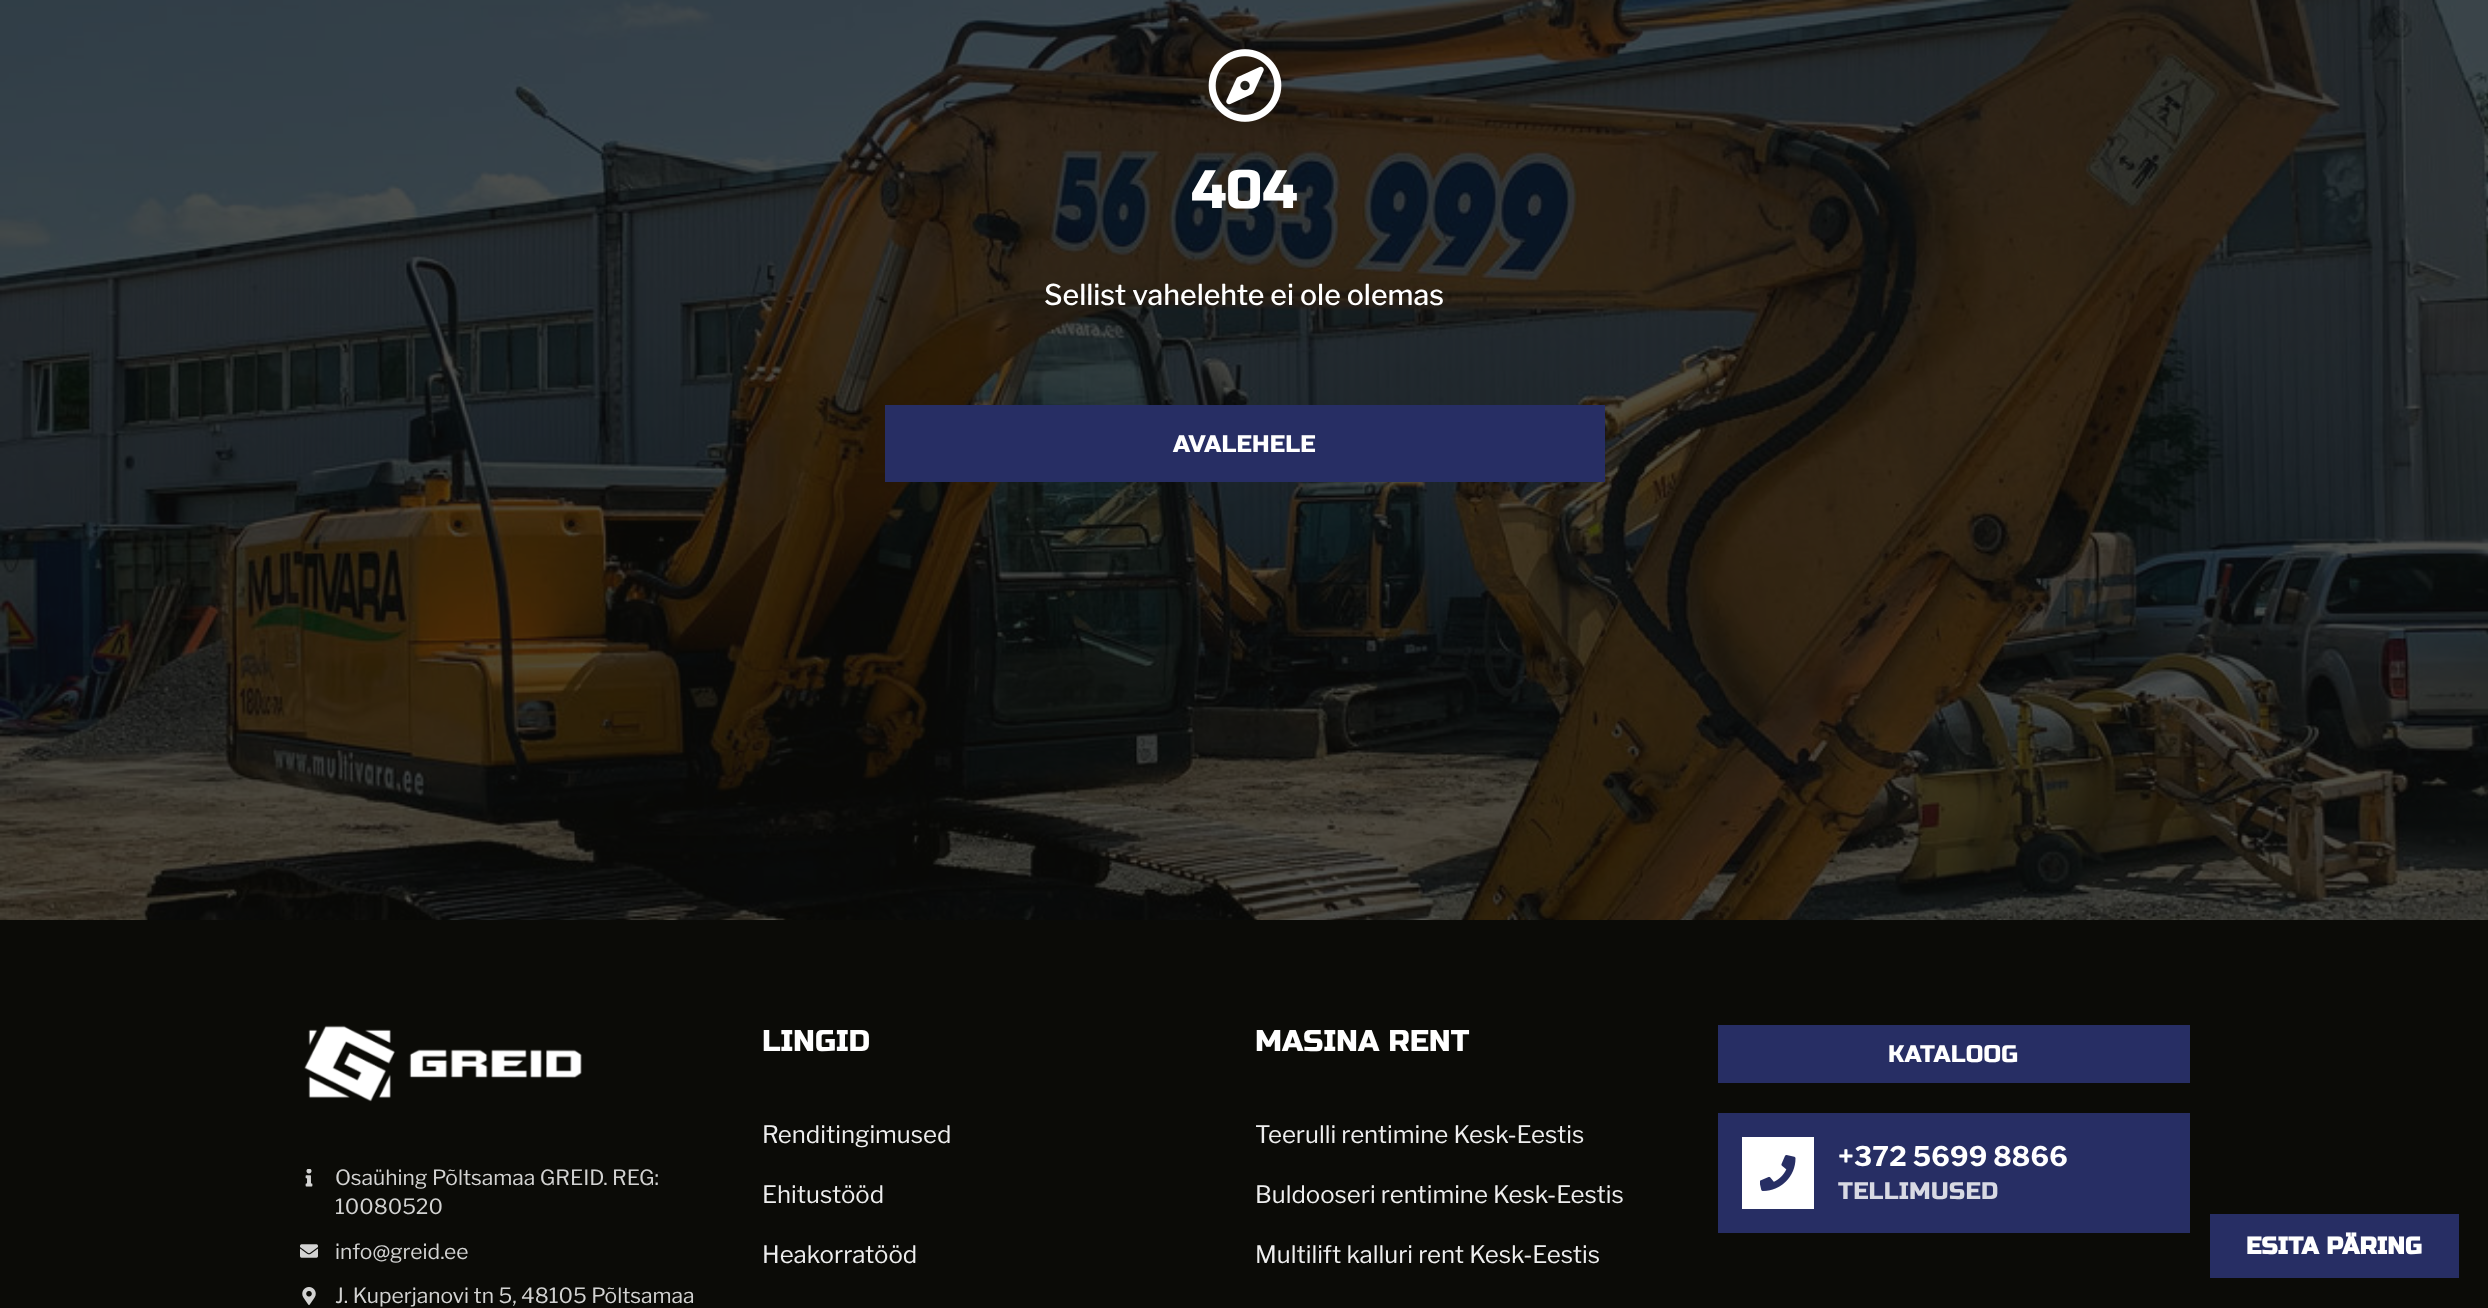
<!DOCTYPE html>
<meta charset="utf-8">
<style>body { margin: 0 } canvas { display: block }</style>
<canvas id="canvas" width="2488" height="1308"></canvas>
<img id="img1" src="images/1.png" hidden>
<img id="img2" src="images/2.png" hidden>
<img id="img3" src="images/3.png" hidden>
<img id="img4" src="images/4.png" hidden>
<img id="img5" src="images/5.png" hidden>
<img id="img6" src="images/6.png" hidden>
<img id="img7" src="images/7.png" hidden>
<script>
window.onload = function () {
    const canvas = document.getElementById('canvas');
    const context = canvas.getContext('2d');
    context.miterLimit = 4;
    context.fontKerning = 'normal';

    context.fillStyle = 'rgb(255, 255, 255)';
    context.fillRect(0, 0, 2488, 1308);
    context.drawImage(document.getElementById('img1'), 0, 0, 2488, 920);
    context.drawImage(document.getElementById('img2'), 1208, 49, 74, 73);
    context.fillStyle = 'rgb(39, 46, 100)';
    context.fillRect(885, 405, 720, 77);
    context.fillStyle = 'rgb(11, 11, 7)';
    context.fillRect(0, 920, 2488, 388);
    context.fillStyle = 'rgb(39, 46, 100)';
    context.fillRect(1718, 1025, 472, 58);
    context.fillRect(1718, 1113, 472, 120);
    context.fillStyle = 'rgb(255, 255, 255)';
    context.fillRect(1742, 1137, 72, 72);
    context.drawImage(document.getElementById('img3'), 1760, 1155, 36, 36);
    context.drawImage(document.getElementById('img4'), 304, 1025, 278, 77);
    context.drawImage(document.getElementById('img5'), 305, 1169, 8, 18);
    context.drawImage(document.getElementById('img6'), 300, 1244, 18, 14);
    context.drawImage(document.getElementById('img7'), 302, 1287, 14, 18);
    context.fillStyle = 'rgb(39, 46, 100)';
    context.fillRect(2210, 1214, 249, 64);
    context.font = '54px Russo One';
    context.fillStyle = 'rgb(255, 255, 255)';
    context.fillText('404', 1191, 208);
    context.font = '500 28.5px Libre Franklin';
    context.fillText('Sellist vahelehte ei ole olemas', 1044, 305);
    context.letterSpacing = '0.25px';
    context.font = '24px Russo One';
    context.fillText('AVALEHELE', 1173, 452);
    context.letterSpacing = '0px';
    context.font = '30px Russo One';
    context.fillText('LINGID', 762, 1051);
    context.font = '24px Libre Franklin';
    context.fillStyle = 'rgb(238, 238, 238)';
    context.fillText('Renditingimused', 762, 1143);
    context.fillText('Ehitustööd', 762, 1203);
    context.fillText('Heakorratööd', 762, 1263);
    context.font = '30px Russo One';
    context.fillStyle = 'rgb(255, 255, 255)';
    context.fillText('MASINA RENT', 1255, 1051);
    context.font = '24px Libre Franklin';
    context.fillStyle = 'rgb(238, 238, 238)';
    context.fillText('Teerulli rentimine Kesk-Eestis', 1255, 1143);
    context.fillText('Buldooseri rentimine Kesk-Eestis', 1255, 1203);
    context.fillText('Multilift kalluri rent Kesk-Eestis', 1255, 1263);
    context.letterSpacing = '0.25px';
    context.font = '24px Russo One';
    context.fillStyle = 'rgb(255, 255, 255)';
    context.fillText('KATALOOG', 1888, 1062);
    context.font = 'bold 27px Libre Franklin';
    context.fillText('+372 5699 8866', 1838, 1166);
    context.font = '24px Russo One';
    context.fillStyle = 'rgb(216, 217, 227)';
    context.fillText('TELLIMUSED', 1838, 1199);
    context.letterSpacing = '0px';
    context.font = '21px Libre Franklin';
    context.fillStyle = 'rgb(211, 211, 210)';
    context.fillText('Osaühing Põltsamaa GREID. REG:', 335, 1185);
    context.fillText('10080520', 335, 1214);
    context.fillText('info@greid.ee', 335, 1259);
    context.fillText('J. Kuperjanovi tn 5, 48105 Põltsamaa', 335, 1303);
    context.letterSpacing = '0.25px';
    context.font = 'bold 24px Russo One';
    context.fillStyle = 'rgb(255, 255, 255)';
    context.fillText('ESITA PÄRING', 2246, 1254);
};
</script>
